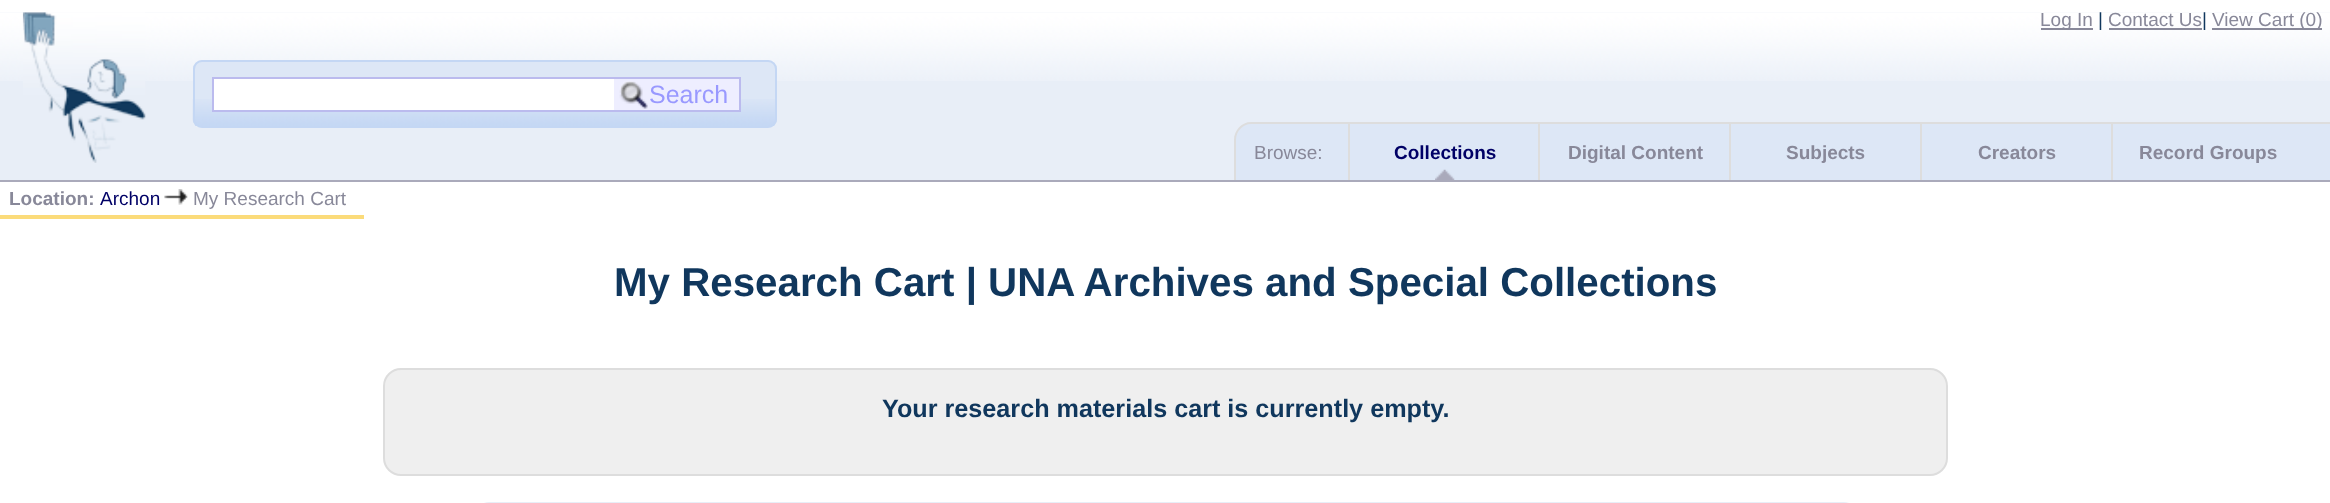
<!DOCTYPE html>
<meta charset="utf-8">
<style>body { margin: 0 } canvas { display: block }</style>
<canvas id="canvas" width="2330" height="503"></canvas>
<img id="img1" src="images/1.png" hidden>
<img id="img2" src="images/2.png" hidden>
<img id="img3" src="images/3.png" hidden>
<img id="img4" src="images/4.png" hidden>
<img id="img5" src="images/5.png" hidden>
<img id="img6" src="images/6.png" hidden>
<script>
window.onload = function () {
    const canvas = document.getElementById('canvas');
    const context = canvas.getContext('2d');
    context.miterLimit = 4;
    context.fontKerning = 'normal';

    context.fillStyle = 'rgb(255, 255, 255)';
    context.fillRect(0, 0, 2330, 503);
    context.fillStyle = 'rgb(232, 238, 247)';
    context.fillRect(0, 12, 2330, 168);
    context.drawImage(document.getElementById('img1'), 0, 12, 2330, 69);
    context.fillStyle = 'rgb(170, 170, 187)';
    context.fillRect(0, 180, 2330, 2);
    context.fillStyle = 'rgb(136, 136, 153)';
    context.fillRect(2041, 28, 52, 2);
    context.fillRect(2109, 28, 93, 2);
    context.fillRect(2212, 28, 110, 2);
    context.drawImage(document.getElementById('img2'), 22, 12, 124, 151);
    context.fillStyle = 'rgb(221, 231, 246)';
    context.beginPath();
    context.roundRect(193, 60, 584, 68, 9);
    context.fill();
    context.drawImage(document.getElementById('img3'), 192, 99, 585, 27);
    context.beginPath();
    context.roundRect(194, 61, 582, 66, 8);
    context.strokeStyle = 'rgb(196, 215, 244)';
    context.lineWidth = 2;
    context.stroke();
    context.fillStyle = 'rgb(255, 255, 255)';
    context.fillRect(214, 79, 400, 31);
    context.strokeStyle = 'rgb(187, 187, 238)';
    context.strokeRect(213, 78, 406, 33);
    context.fillStyle = 'rgb(238, 238, 255)';
    context.fillRect(614, 79, 125, 31);
    context.drawImage(document.getElementById('img4'), 619, 81, 29, 28);
    context.fillStyle = 'rgb(187, 187, 238)';
    context.fillRect(614, 77, 126, 2);
    context.fillRect(739, 77, 2, 35);
    context.fillRect(614, 110, 126, 2);
    context.fillStyle = 'rgb(221, 231, 246)';
    context.beginPath();
    context.moveTo(1252, 123);
    context.lineTo(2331, 123);
    context.lineTo(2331, 180);
    context.lineTo(1234, 180);
    context.lineTo(1234, 141);
    context.bezierCurveTo(1234, 131, 1242, 123, 1252, 123);
    context.closePath();
    context.fill();
    context.fillStyle = 'rgb(221, 221, 221)';
    context.beginPath();
    context.moveTo(1251, 122);
    context.lineTo(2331, 122);
    context.lineTo(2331, 180);
    context.lineTo(1234, 180);
    context.lineTo(1234, 140);
    context.bezierCurveTo(1234, 130, 1242, 122, 1251, 122);
    context.closePath();
    context.moveTo(1251, 124);
    context.lineTo(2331, 124);
    context.lineTo(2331, 180);
    context.lineTo(1236, 180);
    context.lineTo(1236, 140);
    context.bezierCurveTo(1236, 131, 1243, 124, 1251, 124);
    context.closePath();
    context.fill('evenodd');
    context.drawImage(document.getElementById('img5'), 1435, 169, 20, 11);
    context.fillRect(1348, 124, 2, 56);
    context.fillRect(1538, 124, 2, 56);
    context.fillRect(1729, 124, 2, 56);
    context.fillRect(1920, 124, 2, 56);
    context.fillRect(2111, 124, 2, 56);
    context.fillStyle = 'rgb(251, 219, 122)';
    context.fillRect(0, 215, 364, 4);
    context.drawImage(document.getElementById('img6'), 164, 189, 24, 16);
    context.fillStyle = 'rgb(239, 239, 239)';
    context.beginPath();
    context.roundRect(384, 369, 1563, 106, 17);
    context.fill();
    context.strokeStyle = 'rgb(221, 221, 221)';
    context.stroke();
    context.beginPath();
    context.roundRect(472, 503, 1389, 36, 34);
    context.strokeStyle = 'rgb(232, 238, 247)';
    context.stroke();
    context.font = '19px Liberation Sans';
    context.fillStyle = 'rgb(136, 136, 153)';
    context.fillText('Log In', 2040, 26);
    context.fillStyle = 'rgb(16, 55, 93)';
    context.fillText('|', 2098, 26);
    context.fillStyle = 'rgb(136, 136, 153)';
    context.fillText('Contact Us', 2108, 26);
    context.fillStyle = 'rgb(16, 55, 93)';
    context.fillText('|', 2202, 26);
    context.fillStyle = 'rgb(136, 136, 153)';
    context.fillText('View Cart (0)', 2212, 26);
    context.font = '25px Liberation Sans';
    context.fillStyle = 'rgb(153, 153, 255)';
    context.fillText('Search', 649, 103);
    context.font = '19px Liberation Sans';
    context.fillStyle = 'rgb(136, 136, 153)';
    context.fillText('Browse:', 1254, 159);
    context.font = 'bold 19px Liberation Sans';
    context.fillStyle = 'rgb(0, 0, 102)';
    context.fillText('Collections', 1394, 159);
    context.fillStyle = 'rgb(136, 136, 153)';
    context.fillText('Digital Content', 1568, 159);
    context.fillText('Subjects', 1786, 159);
    context.fillText('Creators', 1978, 159);
    context.fillText('Record Groups', 2139, 159);
    context.fillText('Location:', 9, 205);
    context.font = '19px Liberation Sans';
    context.fillStyle = 'rgb(0, 0, 102)';
    context.fillText('Archon', 100, 205);
    context.fillStyle = 'rgb(136, 136, 153)';
    context.fillText('My Research Cart', 193, 205);
    context.font = 'bold 40.3px Liberation Sans';
    context.fillStyle = 'rgb(16, 55, 93)';
    context.fillText('My Research Cart | UNA Archives and Special Collections', 614, 296);
    context.font = 'bold 25.2px Liberation Sans';
    context.fillText('Your research materials cart is currently empty.', 882, 417);
};
</script>
